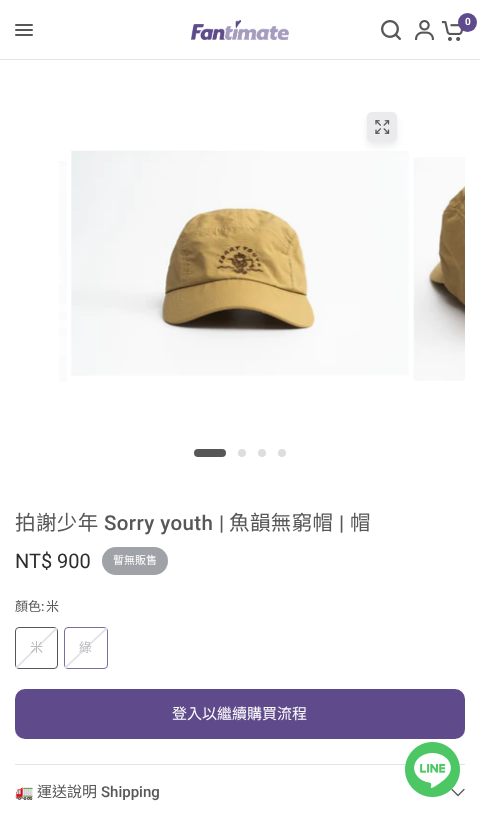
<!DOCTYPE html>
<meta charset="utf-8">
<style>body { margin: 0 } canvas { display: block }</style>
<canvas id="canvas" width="480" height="817"></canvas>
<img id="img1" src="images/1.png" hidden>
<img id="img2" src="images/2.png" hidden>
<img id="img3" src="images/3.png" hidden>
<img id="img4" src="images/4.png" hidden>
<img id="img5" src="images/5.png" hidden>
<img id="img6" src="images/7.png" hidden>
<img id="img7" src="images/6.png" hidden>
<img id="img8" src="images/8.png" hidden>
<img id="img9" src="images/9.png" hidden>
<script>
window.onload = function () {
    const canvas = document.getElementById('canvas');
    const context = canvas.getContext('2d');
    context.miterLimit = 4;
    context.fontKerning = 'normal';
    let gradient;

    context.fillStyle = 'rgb(255, 255, 255)';
    context.fillRect(0, 0, 480, 817);
    context.fillStyle = 'rgb(87, 87, 87)';
    context.beginPath();
    context.roundRect(15, 24, 18, 2, 1);
    context.fill();
    context.beginPath();
    context.roundRect(15, 29, 18, 2, 1);
    context.fill();
    context.beginPath();
    context.roundRect(15, 34, 18, 2, 1);
    context.fill();
    context.drawImage(document.getElementById('img1'), 191, 20, 98, 20);
    context.drawImage(document.getElementById('img2'), 381, 20, 20, 20);
    context.drawImage(document.getElementById('img3'), 415, 20, 19, 20);
    context.drawImage(document.getElementById('img4'), 441, 21, 22, 20);
    context.fillStyle = 'rgb(95, 75, 139)';
    context.beginPath();
    context.arc(467.5, 22.5, 9.5, 0, 2 * Math.PI);
    context.fill();
    context.fillStyle = 'rgb(226, 226, 234)';
    context.fillRect(0, 59, 480, 1);
    context.drawImage(document.getElementById('img5'), 59, 161, 8, 221);
    context.drawImage(document.getElementById('img6'), 71, 150, 338, 226);
    context.fillStyle = 'rgba(0, 0, 0, 0.08)';
    context.filter = 'blur(3px)';
    context.beginPath();
    context.roundRect(367, 116, 30, 30, 5);
    context.fill();
    context.filter = 'none';
    context.fillStyle = 'rgb(235, 235, 237)';
    context.beginPath();
    context.roundRect(367, 112, 30, 30, 5);
    context.fill();
    context.drawImage(document.getElementById('img7'), 375, 120, 15, 14);
    context.drawImage(document.getElementById('img8'), 413, 157, 52, 224);
    context.fillStyle = 'rgb(87, 87, 87)';
    context.beginPath();
    context.roundRect(194, 449, 32, 8, 4);
    context.fill();
    context.fillStyle = 'rgb(221, 221, 221)';
    context.beginPath();
    context.arc(242, 453, 4, 0, 2 * Math.PI);
    context.fill();
    context.beginPath();
    context.arc(262, 453, 4, 0, 2 * Math.PI);
    context.fill();
    context.beginPath();
    context.arc(282, 453, 4, 0, 2 * Math.PI);
    context.fill();
    context.fillStyle = 'rgb(159, 163, 167)';
    context.beginPath();
    context.roundRect(102, 547, 66, 28, 14);
    context.fill();
    context.beginPath();
    context.roundRect(15.5, 627.5, 42, 41, 3.5);
    context.strokeStyle = 'rgb(87, 87, 87)';
    context.stroke();
    gradient = context.createLinearGradient(16, 627, 57, 669);
    gradient.addColorStop(0, 'rgba(0, 0, 0, 0)');
    gradient.addColorStop(0.48, 'rgba(226, 226, 234, 0)');
    gradient.addColorStop(0.49, 'rgb(226, 226, 234)');
    gradient.addColorStop(0.51, 'rgb(226, 226, 234)');
    gradient.addColorStop(0.52, 'rgba(226, 226, 234, 0)');
    gradient.addColorStop(1, 'rgba(0, 0, 0, 0)');
    context.fillStyle = gradient;
    context.beginPath();
    context.roundRect(15, 627, 43, 42, 4);
    context.fill();
    context.beginPath();
    context.roundRect(64.5, 627.5, 43, 41, 3.5);
    context.strokeStyle = 'rgb(124, 109, 158)';
    context.stroke();
    gradient = context.createLinearGradient(65, 626, 107, 670);
    gradient.addColorStop(0, 'rgba(0, 0, 0, 0)');
    gradient.addColorStop(0.48, 'rgba(226, 226, 234, 0)');
    gradient.addColorStop(0.49, 'rgb(226, 226, 234)');
    gradient.addColorStop(0.51, 'rgb(226, 226, 234)');
    gradient.addColorStop(0.52, 'rgba(226, 226, 234, 0)');
    gradient.addColorStop(1, 'rgba(0, 0, 0, 0)');
    context.fillStyle = gradient;
    context.beginPath();
    context.roundRect(64, 627, 44, 42, 4);
    context.fill();
    context.fillStyle = 'rgb(95, 75, 139)';
    context.beginPath();
    context.roundRect(15, 689, 450, 50, 10);
    context.fill();
    context.fillStyle = 'rgb(226, 226, 234)';
    context.fillRect(15, 764, 450, 1);
    context.beginPath();
    context.moveTo(464, 789.5);
    context.lineTo(458, 795.5);
    context.lineTo(452, 789.5);
    context.strokeStyle = 'rgb(87, 87, 87)';
    context.lineWidth = 1.3;
    context.lineCap = 'round';
    context.lineJoin = 'round';
    context.stroke();
    context.drawImage(document.getElementById('img9'), 405, 742, 55, 55);
    context.font = 'bold 10px Roboto';
    context.fillStyle = 'rgb(255, 255, 255)';
    context.fillText('0', 465, 25);
    context.letterSpacing = '0.4px';
    context.font = '20.5px Noto Sans CJK TC';
    context.fillStyle = 'rgb(87, 87, 87)';
    context.fillText('拍謝少年', 15, 530);
    context.font = '500 20.5px Roboto';
    context.fillText('Sorry youth |', 104, 530);
    context.font = '20.5px Noto Sans CJK TC';
    context.fillText('魚韻無窮帽', 229, 530);
    context.font = '500 20.5px Roboto';
    context.fillText('|', 339, 530);
    context.font = '20.5px Noto Sans CJK TC';
    context.fillText('帽', 350, 530);
    context.letterSpacing = '0px';
    context.font = '20px Roboto';
    context.fillStyle = 'rgb(44, 45, 46)';
    context.fillText('NT$ 900', 15, 568);
    context.font = '11px Noto Sans CJK TC';
    context.fillStyle = 'rgb(255, 255, 255)';
    context.fillText('暫無販售', 113, 564);
    context.font = '13px Noto Sans CJK TC';
    context.fillStyle = 'rgb(87, 87, 87)';
    context.fillText('顏色', 15, 611);
    context.font = '500 13px Roboto';
    context.fillText(':', 41, 611);
    context.font = '13px Noto Sans CJK TC';
    context.fillText('米', 46, 611);
    context.fillStyle = 'rgb(188, 188, 188)';
    context.fillText('米', 30, 652);
    context.fillText('綠', 79, 652);
    context.font = '15px Noto Sans CJK TC';
    context.fillStyle = 'rgb(255, 255, 255)';
    context.fillText('登入以繼續購買流程', 172, 719);
    context.font = '15px Noto Color Emoji';
    context.fillStyle = 'rgb(87, 87, 87)';
    context.fillText('🚛', 15, 797);
    context.font = '15px Noto Sans CJK TC';
    context.fillText('運送說明', 37, 797);
    context.font = '500 15px Roboto';
    context.fillText('Shipping', 101, 797);
};
</script>
